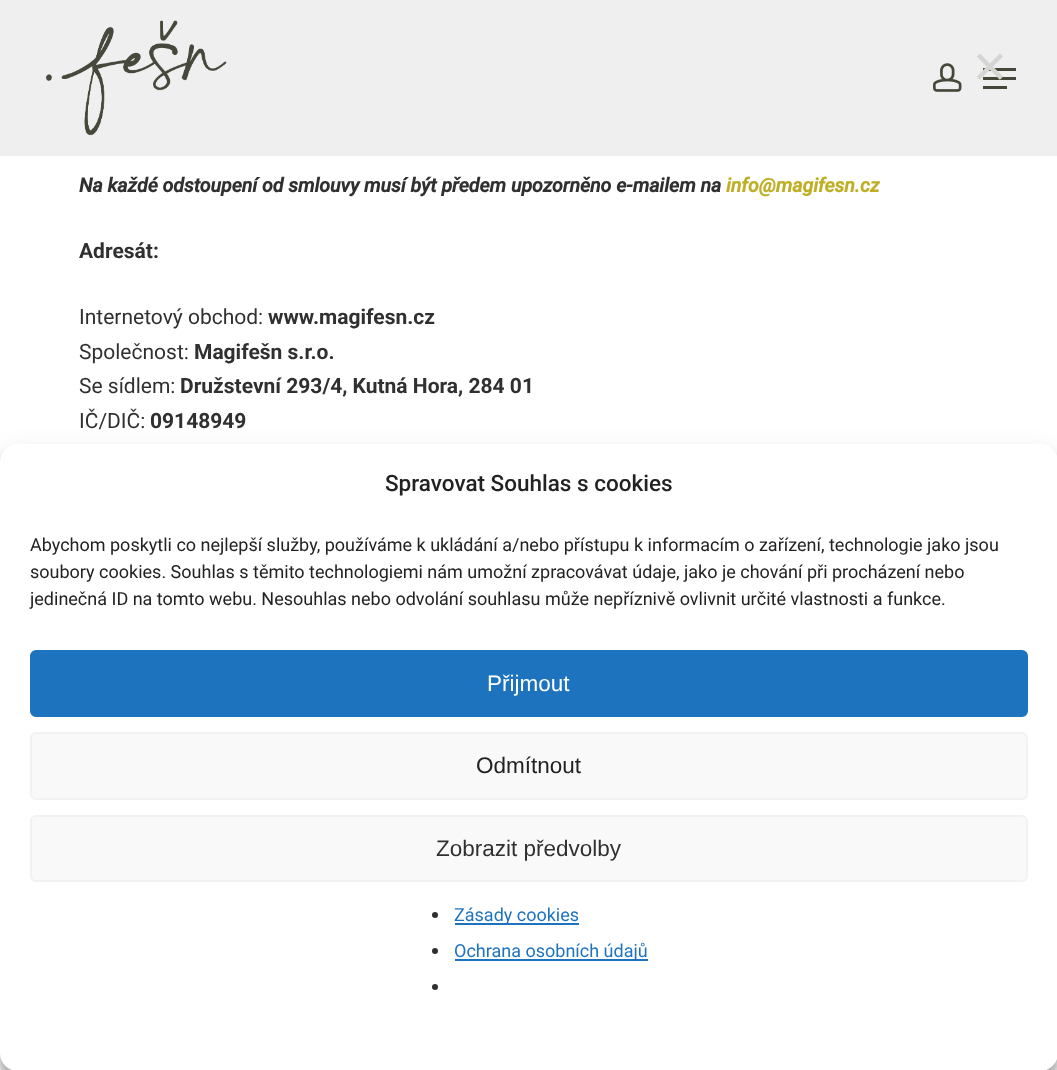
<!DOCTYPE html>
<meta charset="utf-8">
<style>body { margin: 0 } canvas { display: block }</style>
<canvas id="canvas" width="1057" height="1070"></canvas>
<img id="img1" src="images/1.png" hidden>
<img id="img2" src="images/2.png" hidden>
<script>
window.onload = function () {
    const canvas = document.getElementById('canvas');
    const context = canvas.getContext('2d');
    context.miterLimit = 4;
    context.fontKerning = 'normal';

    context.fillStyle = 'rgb(255, 255, 255)';
    context.fillRect(0, 0, 1057, 1070);
    context.fillStyle = 'rgb(239, 239, 239)';
    context.fillRect(0, 0, 1057, 156);
    context.drawImage(document.getElementById('img1'), 45, 20, 182, 116);
    context.drawImage(document.getElementById('img2'), 933, 63, 29, 29);
    context.fillStyle = 'rgb(69, 71, 57)';
    context.fillRect(983, 68, 33, 3);
    context.fillRect(983, 86, 24, 3);
    context.fillRect(983, 77, 33, 3);
    context.fillStyle = 'rgba(0, 0, 0, 0.23)';
    context.filter = 'blur(4.5px)';
    context.beginPath();
    context.roundRect(0, 453, 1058, 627, 18);
    context.fill();
    context.filter = 'none';
    context.fillStyle = 'rgba(0, 0, 0, 0.19)';
    context.filter = 'blur(15px)';
    context.beginPath();
    context.roundRect(0, 459, 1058, 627, 18);
    context.fill();
    context.filter = 'none';
    context.fillStyle = 'rgb(255, 255, 255)';
    context.beginPath();
    context.roundRect(0, 444, 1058, 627, 18);
    context.fill();
    context.fillStyle = 'rgb(30, 115, 190)';
    context.beginPath();
    context.roundRect(31, 651, 996, 65, 5);
    context.fill();
    context.strokeStyle = 'rgb(30, 115, 190)';
    context.lineWidth = 2;
    context.stroke();
    context.fillStyle = 'rgb(249, 249, 249)';
    context.beginPath();
    context.roundRect(31, 733, 996, 66, 5);
    context.fill();
    context.strokeStyle = 'rgb(242, 242, 242)';
    context.stroke();
    context.beginPath();
    context.roundRect(31, 816, 996, 65, 5);
    context.fill();
    context.stroke();
    context.fillStyle = 'rgb(48, 48, 48)';
    context.beginPath();
    context.arc(435, 915, 3, 0, 2 * Math.PI);
    context.fill();
    context.fillStyle = 'rgb(30, 115, 190)';
    context.fillRect(455, 923, 124, 2);
    context.fillStyle = 'rgb(48, 48, 48)';
    context.beginPath();
    context.arc(435, 951, 3, 0, 2 * Math.PI);
    context.fill();
    context.fillStyle = 'rgb(30, 115, 190)';
    context.fillRect(455, 959, 193, 2);
    context.fillStyle = 'rgb(48, 48, 48)';
    context.beginPath();
    context.arc(435, 987, 3, 0, 2 * Math.PI);
    context.fill();
    context.font = '45px DejaVu Sans';
    context.fillStyle = 'rgb(213, 214, 212)';
    context.fillText('✕', 971, 83);
    context.font = 'italic bold 19.5px Roboto';
    context.fillStyle = 'rgb(48, 48, 48)';
    context.fillText('Na každé odstoupení od smlouvy musí být předem upozorněno e-mailem na', 79, 192);
    context.fillStyle = 'rgb(191, 175, 38)';
    context.fillText('info@magifesn.cz', 726, 192);
    context.font = 'bold 21px Roboto';
    context.fillStyle = 'rgb(48, 48, 48)';
    context.fillText('Adresát:', 79, 258);
    context.font = '21px Roboto';
    context.fillText('Internetový obchod:', 79, 324);
    context.font = 'bold 21px Roboto';
    context.fillText('www.magifesn.cz', 268, 324);
    context.font = '21px Roboto';
    context.fillText('Společnost:', 79, 359);
    context.font = 'bold 21px Roboto';
    context.fillText('Magifešn s.r.o.', 194, 359);
    context.font = '21px Roboto';
    context.fillText('Se sídlem:', 79, 393);
    context.font = 'bold 21px Roboto';
    context.fillText('Družstevní 293/4, Kutná Hora, 284 01', 180, 393);
    context.font = '21px Roboto';
    context.fillText('IČ/DIČ:', 79, 428);
    context.font = 'bold 21px Roboto';
    context.fillText('09148949', 150, 428);
    context.font = '500 22.5px Roboto';
    context.fillStyle = 'rgb(34, 34, 34)';
    context.fillText('Spravovat Souhlas s cookies', 385, 491);
    context.font = '18px Roboto';
    context.fillText('Abychom poskytli co nejlepší služby, používáme k ukládání a/nebo přístupu k informacím o zařízení, technologie jako jsou', 30, 551);
    context.fillText('soubory cookies. Souhlas s těmito technologiemi nám umožní zpracovávat údaje, jako je chování při procházení nebo', 30, 578);
    context.fillText('jedinečná ID na tomto webu. Nesouhlas nebo odvolání souhlasu může nepříznivě ovlivnit určité vlastnosti a funkce.', 30, 605);
    context.font = '22.5px Liberation Sans';
    context.fillStyle = 'rgb(255, 255, 255)';
    context.fillText('Přijmout', 487, 691);
    context.fillStyle = 'rgb(34, 34, 34)';
    context.fillText('Odmítnout', 476, 773);
    context.fillStyle = 'rgb(48, 48, 48)';
    context.fillText('Zobrazit předvolby', 436, 856);
    context.font = '18px Roboto';
    context.fillStyle = 'rgb(30, 115, 190)';
    context.fillText('Zásady cookies', 454, 921);
    context.fillText('Ochrana osobních údajů', 454, 957);
};
</script>
